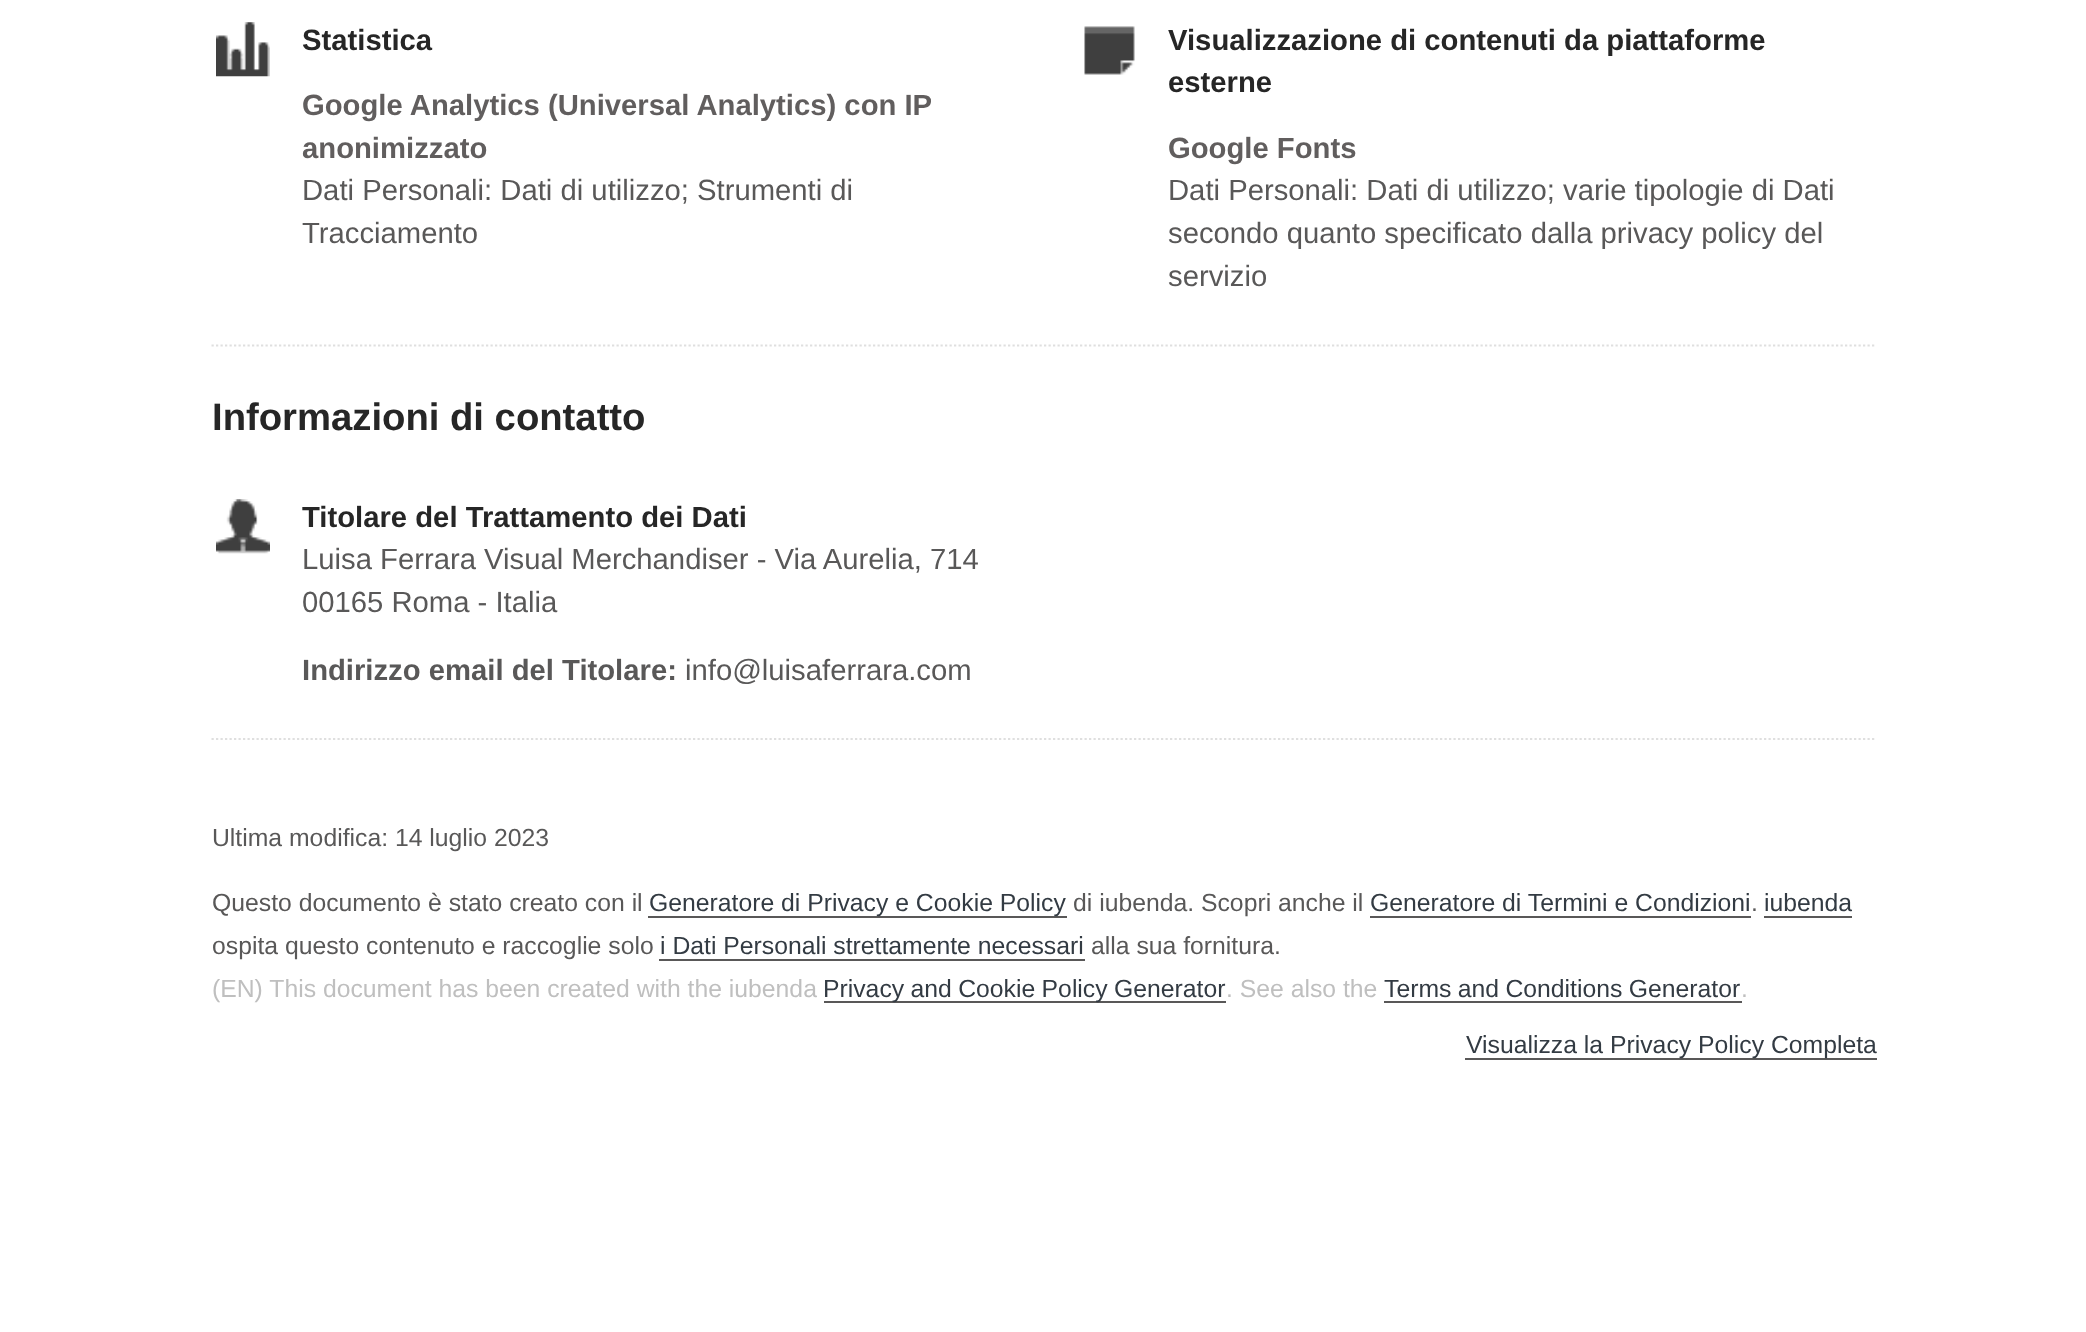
<!DOCTYPE html>
<meta charset="utf-8">
<style>body { margin: 0 } canvas { display: block }</style>
<canvas id="canvas" width="2086" height="1332"></canvas>
<img id="img1" src="images/1.png" hidden>
<img id="img2" src="images/2.png" hidden>
<img id="img3" src="images/3.png" hidden>
<script>
window.onload = function () {
    const canvas = document.getElementById('canvas');
    const context = canvas.getContext('2d');
    context.miterLimit = 4;
    context.fontKerning = 'normal';

    context.fillStyle = 'rgb(255, 255, 255)';
    context.fillRect(0, 0, 2086, 1332);
    context.beginPath();
    context.moveTo(211.5, 345.5);
    context.lineTo(1876.5, 345.5);
    context.strokeStyle = 'rgb(223, 223, 223)';
    context.lineWidth = 2.2;
    context.setLineDash([2.25, 2.25]);
    context.stroke();
    context.drawImage(document.getElementById('img1'), 216, 22, 54, 55);
    context.drawImage(document.getElementById('img2'), 1084, 26, 51, 49);
    context.beginPath();
    context.moveTo(211.5, 739);
    context.lineTo(1876.5, 739);
    context.stroke();
    context.drawImage(document.getElementById('img3'), 216, 499, 54, 55);
    context.fillStyle = 'rgb(89, 88, 88)';
    context.fillRect(648, 916, 419, 2);
    context.fillRect(1370, 916, 381, 2);
    context.fillRect(1764, 916, 88, 2);
    context.fillRect(659, 959, 426, 2);
    context.fillRect(824, 1001, 402, 2);
    context.fillRect(1384, 1001, 358, 2);
    context.fillRect(1465, 1058, 412, 2);
    context.font = 'bold 29.25px Liberation Sans';
    context.fillStyle = 'rgb(38, 38, 38)';
    context.fillText('Statistica', 302, 50);
    context.fillStyle = 'rgb(97, 94, 94)';
    context.fillText('Google Analytics (Universal Analytics) con IP', 302, 115);
    context.fillText('anonimizzato', 302, 158);
    context.font = '29.25px Liberation Sans';
    context.fillStyle = 'rgb(89, 88, 88)';
    context.fillText('Dati Personali: Dati di utilizzo; Strumenti di', 302, 200);
    context.fillText('Tracciamento', 302, 243);
    context.font = 'bold 29.25px Liberation Sans';
    context.fillStyle = 'rgb(38, 38, 38)';
    context.fillText('Visualizzazione di contenuti da piattaforme', 1168, 50);
    context.fillText('esterne', 1168, 92);
    context.fillStyle = 'rgb(97, 94, 94)';
    context.fillText('Google Fonts', 1168, 158);
    context.font = '29.25px Liberation Sans';
    context.fillStyle = 'rgb(89, 88, 88)';
    context.fillText('Dati Personali: Dati di utilizzo; varie tipologie di Dati', 1168, 200);
    context.fillText('secondo quanto specificato dalla privacy policy del', 1168, 243);
    context.fillText('servizio', 1168, 286);
    context.font = 'bold 38.25px Liberation Sans';
    context.fillStyle = 'rgb(38, 38, 38)';
    context.fillText('Informazioni di contatto', 212, 430);
    context.font = 'bold 29.25px Liberation Sans';
    context.fillText('Titolare del Trattamento dei Dati', 302, 527);
    context.font = '29.25px Liberation Sans';
    context.fillStyle = 'rgb(89, 88, 88)';
    context.fillText('Luisa Ferrara Visual Merchandiser - Via Aurelia, 714', 302, 569);
    context.fillText('00165 Roma - Italia', 302, 612);
    context.font = 'bold 29.25px Liberation Sans';
    context.fillText('Indirizzo email del Titolare:', 302, 680);
    context.font = '29.25px Liberation Sans';
    context.fillText('info@luisaferrara.com', 685, 680);
    context.font = '24.75px Liberation Sans';
    context.fillText('Ultima modifica: 14 luglio 2023', 212, 846);
    context.fillText('Questo documento è stato creato con il', 212, 911);
    context.fillStyle = 'rgb(51, 59, 67)';
    context.fillText('Generatore di Privacy e Cookie Policy', 649, 911);
    context.fillStyle = 'rgb(89, 88, 88)';
    context.fillText('di iubenda. Scopri anche il', 1073, 911);
    context.fillStyle = 'rgb(51, 59, 67)';
    context.fillText('Generatore di Termini e Condizioni', 1370, 911);
    context.fillStyle = 'rgb(89, 88, 88)';
    context.fillText('.', 1751, 911);
    context.fillStyle = 'rgb(51, 59, 67)';
    context.fillText('iubenda', 1764, 911);
    context.fillStyle = 'rgb(89, 88, 88)';
    context.fillText('ospita questo contenuto e raccoglie solo', 212, 954);
    context.fillStyle = 'rgb(51, 59, 67)';
    context.fillText('i Dati Personali strettamente necessari', 660, 954);
    context.fillStyle = 'rgb(89, 88, 88)';
    context.fillText('alla sua fornitura.', 1091, 954);
    context.fillStyle = 'rgb(191, 191, 191)';
    context.fillText('(EN) This document has been created with the iubenda', 212, 997);
    context.wordSpacing = '-0.5px';
    context.fillStyle = 'rgb(51, 59, 67)';
    context.fillText('Privacy and Cookie Policy Generator', 823, 997);
    context.wordSpacing = '0px';
    context.fillStyle = 'rgb(191, 191, 191)';
    context.fillText('. See also the', 1226, 997);
    context.wordSpacing = '-0.5px';
    context.fillStyle = 'rgb(51, 59, 67)';
    context.fillText('Terms and Conditions Generator', 1384, 997);
    context.wordSpacing = '0px';
    context.fillStyle = 'rgb(191, 191, 191)';
    context.fillText('.', 1741, 997);
    context.fillStyle = 'rgb(51, 59, 67)';
    context.fillText('Visualizza la Privacy Policy Completa', 1466, 1053);
};
</script>
